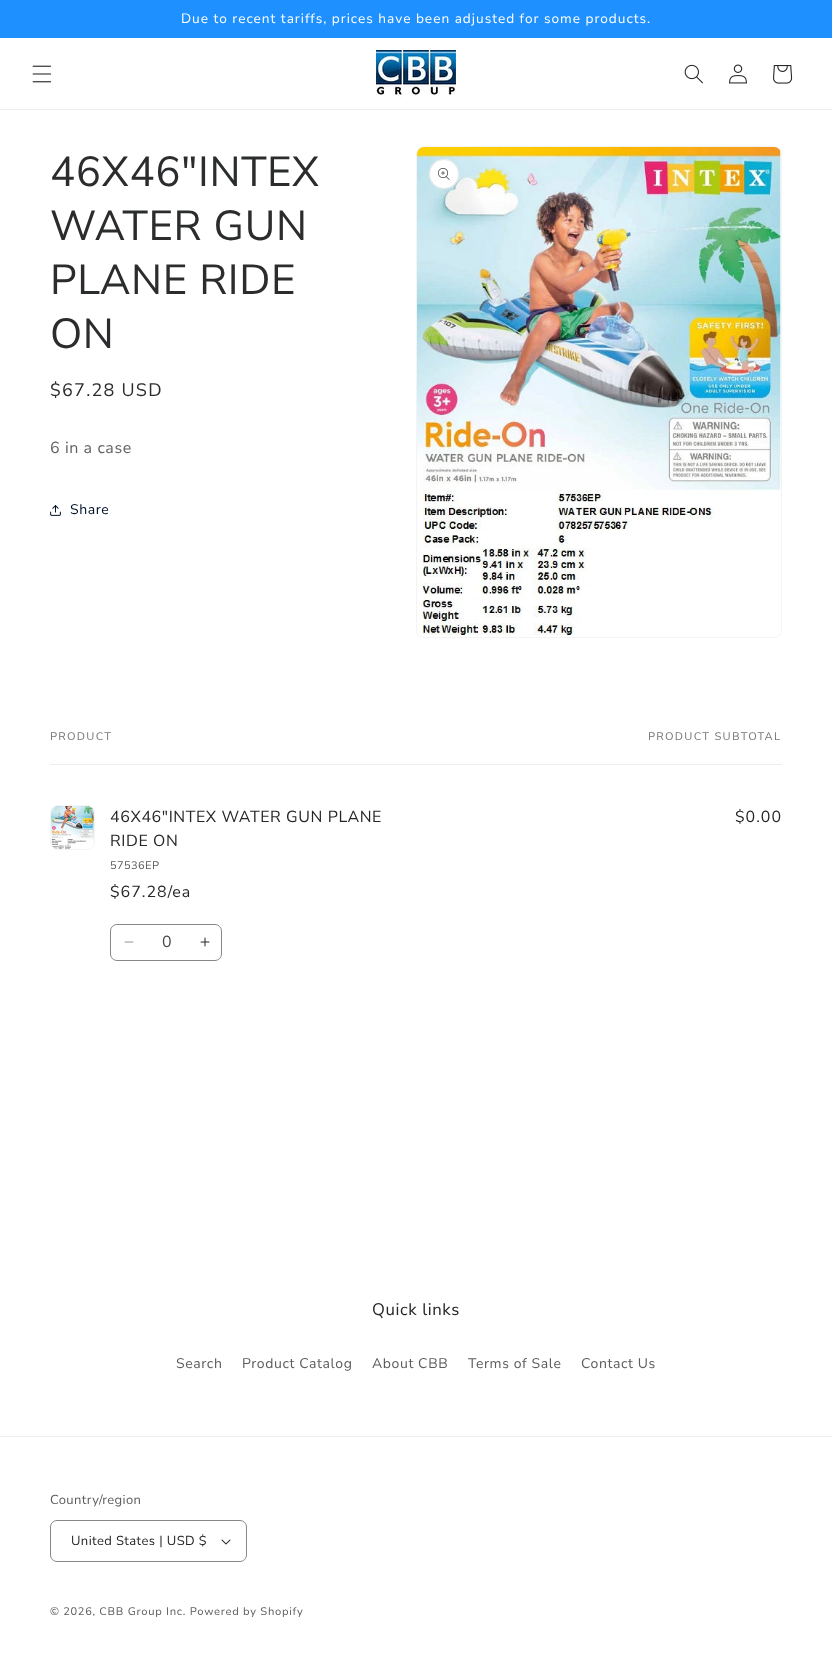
<!DOCTYPE html>
<meta charset="utf-8">
<style>body { margin: 0 } canvas { display: block }</style>
<canvas id="canvas" width="832" height="1658"></canvas>
<img id="img1" src="images/1.png" hidden>
<img id="img2" src="images/2.png" hidden>
<img id="img3" src="images/3.png" hidden>
<img id="img4" src="images/4.png" hidden>
<img id="img5" src="images/5.png" hidden>
<img id="img6" src="images/6.png" hidden>
<img id="img7" src="images/7.png" hidden>
<img id="img8" src="images/8.png" hidden>
<img id="img9" src="images/9.png" hidden>
<img id="img10" src="images/10.png" hidden>
<img id="img11" src="images/11.png" hidden>
<img id="img12" src="images/12.png" hidden>
<script>
window.onload = function () {
    const canvas = document.getElementById('canvas');
    const context = canvas.getContext('2d');
    context.miterLimit = 4;
    context.fontKerning = 'normal';

    context.fillStyle = 'rgb(255, 255, 255)';
    context.fillRect(0, 0, 832, 1658);
    context.fillStyle = 'rgb(30, 144, 255)';
    context.fillRect(0, 0, 832, 38);
    context.fillStyle = 'rgb(238, 238, 238)';
    context.fillRect(0, 109, 832, 1);
    context.drawImage(document.getElementById('img1'), 32, 65, 20, 18);
    context.drawImage(document.getElementById('img2'), 376, 50, 80, 47);
    context.drawImage(document.getElementById('img3'), 684, 64, 19, 20);
    context.drawImage(document.getElementById('img4'), 729, 64, 18, 20);
    context.drawImage(document.getElementById('img5'), 773, 65, 20, 19);
    context.drawImage(document.getElementById('img6'), 50, 505, 11, 11);
    context.beginPath();
    context.roundRect(416.5, 146.5, 365, 491, 7.5);
    context.strokeStyle = 'rgb(244, 244, 245)';
    context.stroke();
    context.drawImage(document.getElementById('img7'), 417, 147, 364, 488);
    context.fillStyle = 'rgb(255, 255, 255)';
    context.beginPath();
    context.arc(444, 174, 15, 0, 2 * Math.PI);
    context.fill();
    context.beginPath();
    context.arc(444, 174, 14.5, 0, 2 * Math.PI);
    context.strokeStyle = 'rgba(43, 44, 45, 0.1)';
    context.stroke();
    context.drawImage(document.getElementById('img8'), 438, 168, 12, 12);
    context.fillStyle = 'rgb(238, 238, 238)';
    context.fillRect(50, 764, 732, 1);
    context.beginPath();
    context.roundRect(50.5, 805.5, 44, 44, 7.5);
    context.strokeStyle = 'rgb(244, 244, 244)';
    context.stroke();
    context.drawImage(document.getElementById('img9'), 51, 806, 43, 43);
    context.drawImage(document.getElementById('img10'), 124, 941, 10, 2);
    context.drawImage(document.getElementById('img11'), 200, 937, 10, 10);
    context.beginPath();
    context.roundRect(110.5, 924.5, 111, 36, 6.5);
    context.strokeStyle = 'rgb(136, 136, 136)';
    context.stroke();
    context.fillRect(0, 1436, 832, 1);
    context.drawImage(document.getElementById('img12'), 221, 1539, 10, 6);
    context.beginPath();
    context.roundRect(50.5, 1520.5, 196, 41, 6.5);
    context.stroke();
    context.letterSpacing = '1px';
    context.font = '13.65px Nunito Sans';
    context.fillStyle = 'rgb(255, 255, 255)';
    context.fillText('Due to recent tariffs, prices have been adjusted for some products.', 181, 23);
    context.letterSpacing = '0.6px';
    context.font = '42px Nunito Sans';
    context.fillStyle = 'rgb(43, 44, 45)';
    context.fillText('46X46"INTEX', 50, 186);
    context.fillText('WATER GUN', 50, 240);
    context.fillText('PLANE RIDE', 50, 294);
    context.fillText('ON', 50, 348);
    context.letterSpacing = '1.25px';
    context.font = '18px Nunito Sans';
    context.fillText('$67.28 USD', 50, 396);
    context.letterSpacing = '0.6px';
    context.font = '16px Nunito Sans';
    context.fillStyle = 'rgb(96, 97, 98)';
    context.fillText('6 in a case', 50, 453);
    context.font = '14px Nunito Sans';
    context.fillStyle = 'rgb(0, 17, 40)';
    context.fillText('Share', 70, 514);
    context.letterSpacing = '1.25px';
    context.font = '11px "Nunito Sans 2"';
    context.fillStyle = 'rgb(117, 117, 117)';
    context.fillText('PRODUCT', 50, 740);
    context.fillText('PRODUCT SUBTOTAL', 648, 740);
    context.letterSpacing = '0.6px';
    context.font = '16px Nunito Sans';
    context.fillStyle = 'rgb(38, 38, 38)';
    context.fillText('46X46"INTEX WATER GUN PLANE', 110, 822);
    context.fillText('RIDE ON', 110, 846);
    context.letterSpacing = '0.4px';
    context.font = '11px "Nunito Sans 2"';
    context.fillStyle = 'rgb(92, 92, 92)';
    context.fillText('57536EP', 110, 869);
    context.letterSpacing = '1px';
    context.font = '16px Nunito Sans';
    context.fillStyle = 'rgb(38, 38, 38)';
    context.fillText('$67.28/ea', 110, 897);
    context.fillText('$0.00', 735, 822);
    context.letterSpacing = '0px';
    context.fillStyle = 'rgb(71, 71, 71)';
    context.fillText('0', 162, 947);
    context.letterSpacing = '0.6px';
    context.font = '16.75px Nunito Sans';
    context.fillStyle = 'rgb(38, 38, 38)';
    context.fillText('Quick links', 372, 1315);
    context.font = '14px Nunito Sans';
    context.fillStyle = 'rgb(92, 92, 92)';
    context.fillText('Search', 176, 1368);
    context.fillText('Product Catalog', 242, 1368);
    context.fillText('About CBB', 372, 1368);
    context.fillText('Terms of Sale', 468, 1368);
    context.fillText('Contact Us', 581, 1368);
    context.letterSpacing = '0.4px';
    context.font = '13px Nunito Sans';
    context.fillText('Country/region', 50, 1504);
    context.fillStyle = 'rgb(38, 38, 38)';
    context.fillText('United States | USD $', 71, 1545);
    context.letterSpacing = '0.7px';
    context.font = '11px "Nunito Sans 2"';
    context.fillStyle = 'rgb(92, 92, 92)';
    context.fillText('© 2026, CBB Group Inc. Powered by Shopify', 50, 1615);
};
</script>
